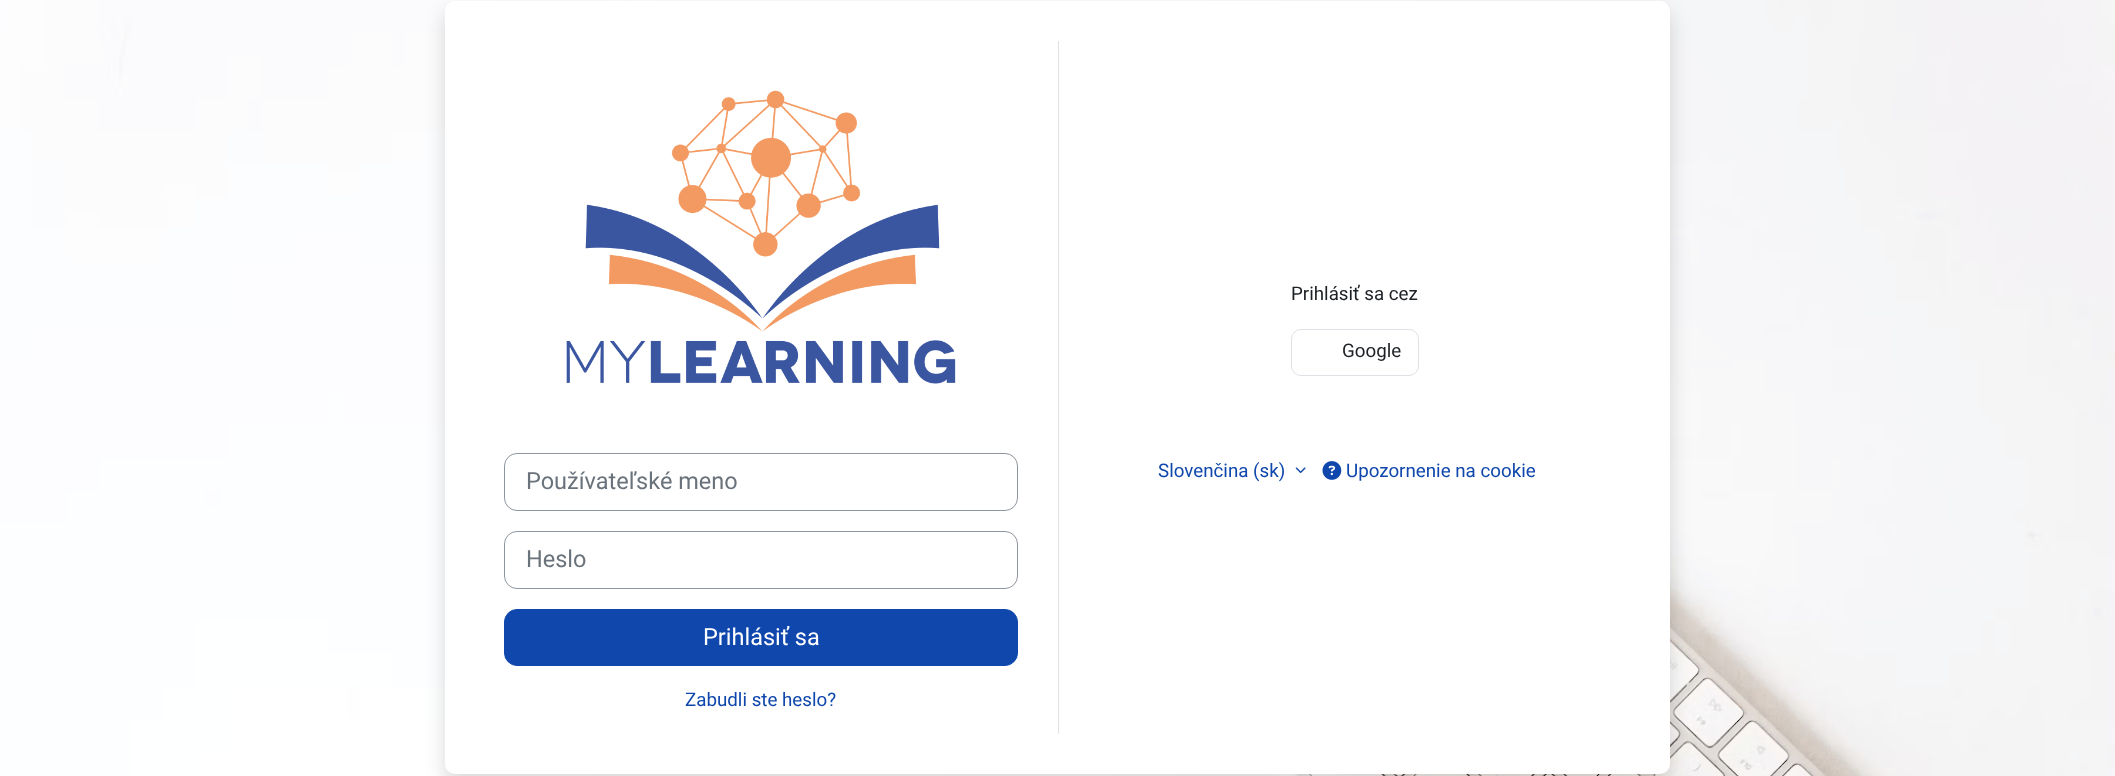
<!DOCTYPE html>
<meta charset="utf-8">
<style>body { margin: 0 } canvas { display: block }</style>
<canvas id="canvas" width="2115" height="776"></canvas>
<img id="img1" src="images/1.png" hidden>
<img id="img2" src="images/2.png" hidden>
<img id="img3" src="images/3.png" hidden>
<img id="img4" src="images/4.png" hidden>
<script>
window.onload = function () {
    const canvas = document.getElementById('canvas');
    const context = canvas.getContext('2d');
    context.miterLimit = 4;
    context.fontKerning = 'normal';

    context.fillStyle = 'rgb(255, 255, 255)';
    context.fillRect(0, 0, 2115, 776);
    context.drawImage(document.getElementById('img1'), 0, 0, 2115, 776);
    context.fillStyle = 'rgba(0, 0, 0, 0.15)';
    context.filter = 'blur(10px)';
    context.beginPath();
    context.roundRect(445, 11, 1225, 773, 10);
    context.fill();
    context.filter = 'none';
    context.fillStyle = 'rgb(255, 255, 255)';
    context.beginPath();
    context.roundRect(445, 1, 1225, 773, 10);
    context.fill();
    context.fillStyle = 'rgb(222, 226, 230)';
    context.fillRect(1058, 41, 1, 693);
    context.beginPath();
    context.roundRect(1291.5, 329.5, 127, 46, 9.5);
    context.strokeStyle = 'rgb(222, 226, 230)';
    context.stroke();
    context.drawImage(document.getElementById('img2'), 1295, 467, 11, 6);
    context.drawImage(document.getElementById('img3'), 1322, 461, 20, 19);
    context.drawImage(document.getElementById('img4'), 566, 90, 390, 294);
    context.beginPath();
    context.roundRect(504.5, 453.5, 513, 57, 12.5);
    context.strokeStyle = 'rgb(143, 149, 158)';
    context.stroke();
    context.beginPath();
    context.roundRect(504.5, 531.5, 513, 57, 12.5);
    context.stroke();
    context.fillStyle = 'rgb(15, 71, 173)';
    context.beginPath();
    context.roundRect(504.5, 609.5, 513, 56, 12.5);
    context.fill();
    context.strokeStyle = 'rgb(15, 71, 173)';
    context.stroke();
    context.font = '18.75px Roboto';
    context.fillStyle = 'rgb(29, 33, 37)';
    context.fillText('Prihlásiť sa cez', 1291, 300);
    context.fillText('Google', 1342, 357);
    context.fillStyle = 'rgb(15, 71, 173)';
    context.fillText('Slovenčina (sk)', 1158, 477);
    context.fillText('Upozornenie na cookie', 1346, 477);
    context.font = '23.5px Roboto';
    context.fillStyle = 'rgb(106, 115, 123)';
    context.fillText('Používateľské meno', 526, 489);
    context.fillText('Heslo', 526, 567);
    context.fillStyle = 'rgb(255, 255, 255)';
    context.fillText('Prihlásiť sa', 703, 645);
    context.font = '18.75px Roboto';
    context.fillStyle = 'rgb(15, 71, 173)';
    context.fillText('Zabudli ste heslo?', 685, 706);
};
</script>
